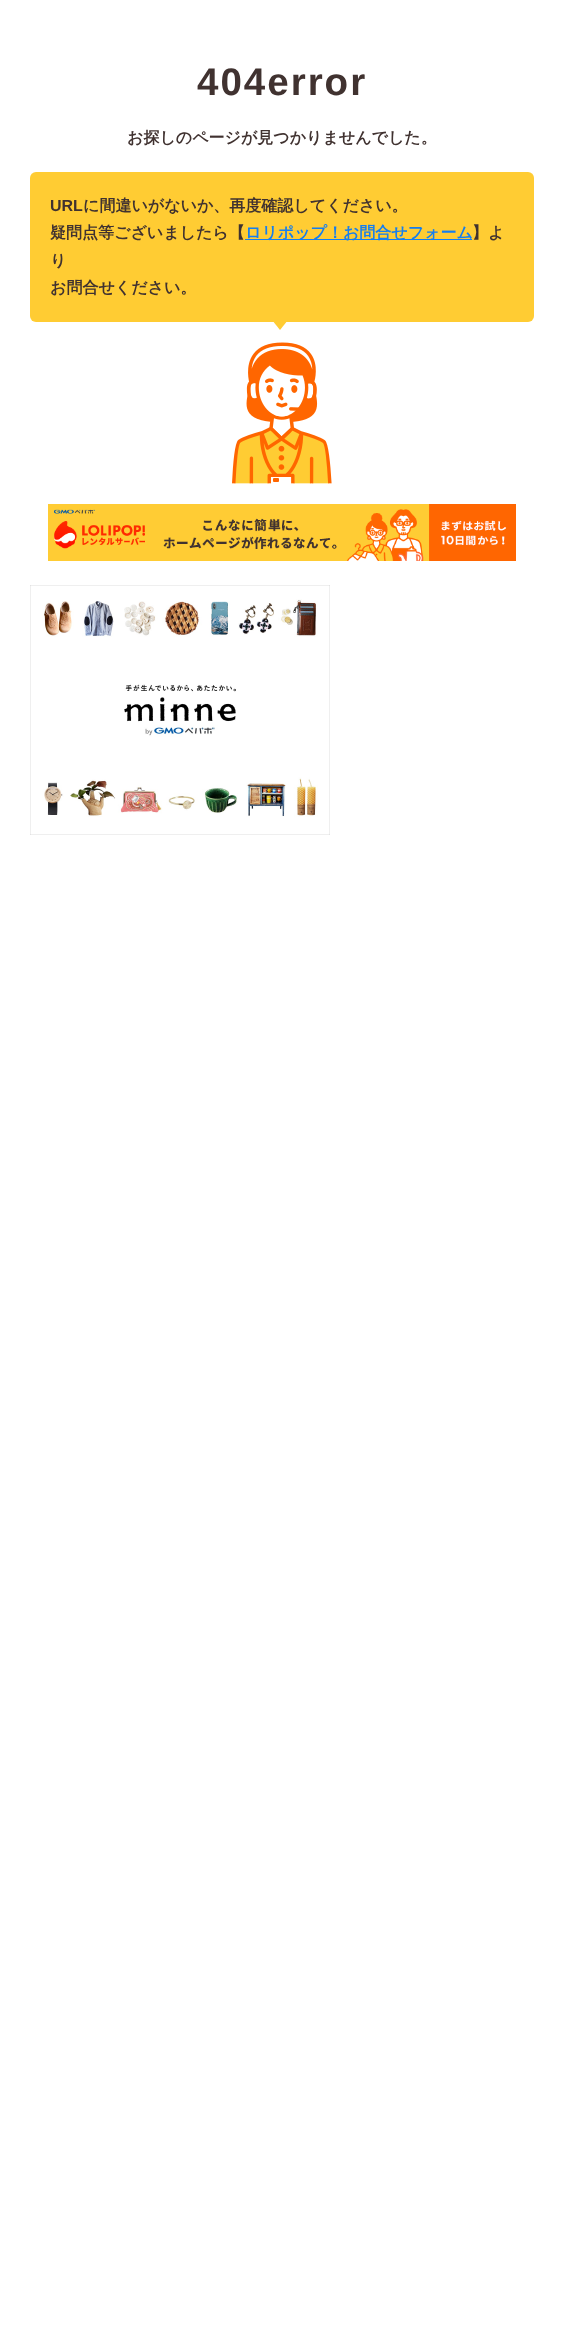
<!DOCTYPE html>
<meta charset="utf-8">
<style>body { margin: 0 } canvas { display: block }</style>
<canvas id="canvas" width="564" height="2343"></canvas>
<img id="img1" src="images/1.png" hidden>
<img id="img2" src="images/2.png" hidden>
<img id="img3" src="images/3.png" hidden>
<script>
window.onload = function () {
    const canvas = document.getElementById('canvas');
    const context = canvas.getContext('2d');
    context.miterLimit = 4;
    context.fontKerning = 'normal';

    context.fillStyle = 'rgb(255, 255, 255)';
    context.fillRect(0, 0, 564, 2343);
    context.fillStyle = 'rgb(255, 204, 51)';
    context.beginPath();
    context.roundRect(30, 172, 504, 150, 6);
    context.fill();
    context.fillStyle = 'rgb(20, 126, 240)';
    context.fillRect(245, 239, 227, 1);
    context.fillStyle = 'rgb(255, 204, 51)';
    context.beginPath();
    context.moveTo(272, 320);
    context.lineTo(288, 320);
    context.lineTo(280, 330);
    context.closePath();
    context.fill();
    context.drawImage(document.getElementById('img1'), 232, 342, 100, 142);
    context.drawImage(document.getElementById('img2'), 48, 504, 468, 57);
    context.drawImage(document.getElementById('img3'), 30, 585, 300, 250);
    context.letterSpacing = '2px';
    context.font = 'bold 38.5px Liberation Sans';
    context.fillStyle = 'rgb(64, 50, 48)';
    context.fillText('404error', 197, 95);
    context.letterSpacing = '0px';
    context.font = 'bold 16px WenQuanYi Zen Hei';
    context.fillText('お探しのページが見つかりませんでした。', 127, 143);
    context.font = 'bold 16px Liberation Sans';
    context.fillText('URL', 50, 211);
    context.font = 'bold 16px WenQuanYi Zen Hei';
    context.fillText('に間違いがないか、再度確認してください。', 83, 211);
    context.fillText('疑問点等ございましたら【', 50, 238);
    context.fillStyle = 'rgb(20, 126, 240)';
    context.fillText('ロリポップ！お問合せフォーム', 245, 238);
    context.fillStyle = 'rgb(64, 50, 48)';
    context.fillText('】よ', 472, 238);
    context.fillText('り', 50, 266);
    context.fillText('お問合せください。', 50, 293);
};
</script>
